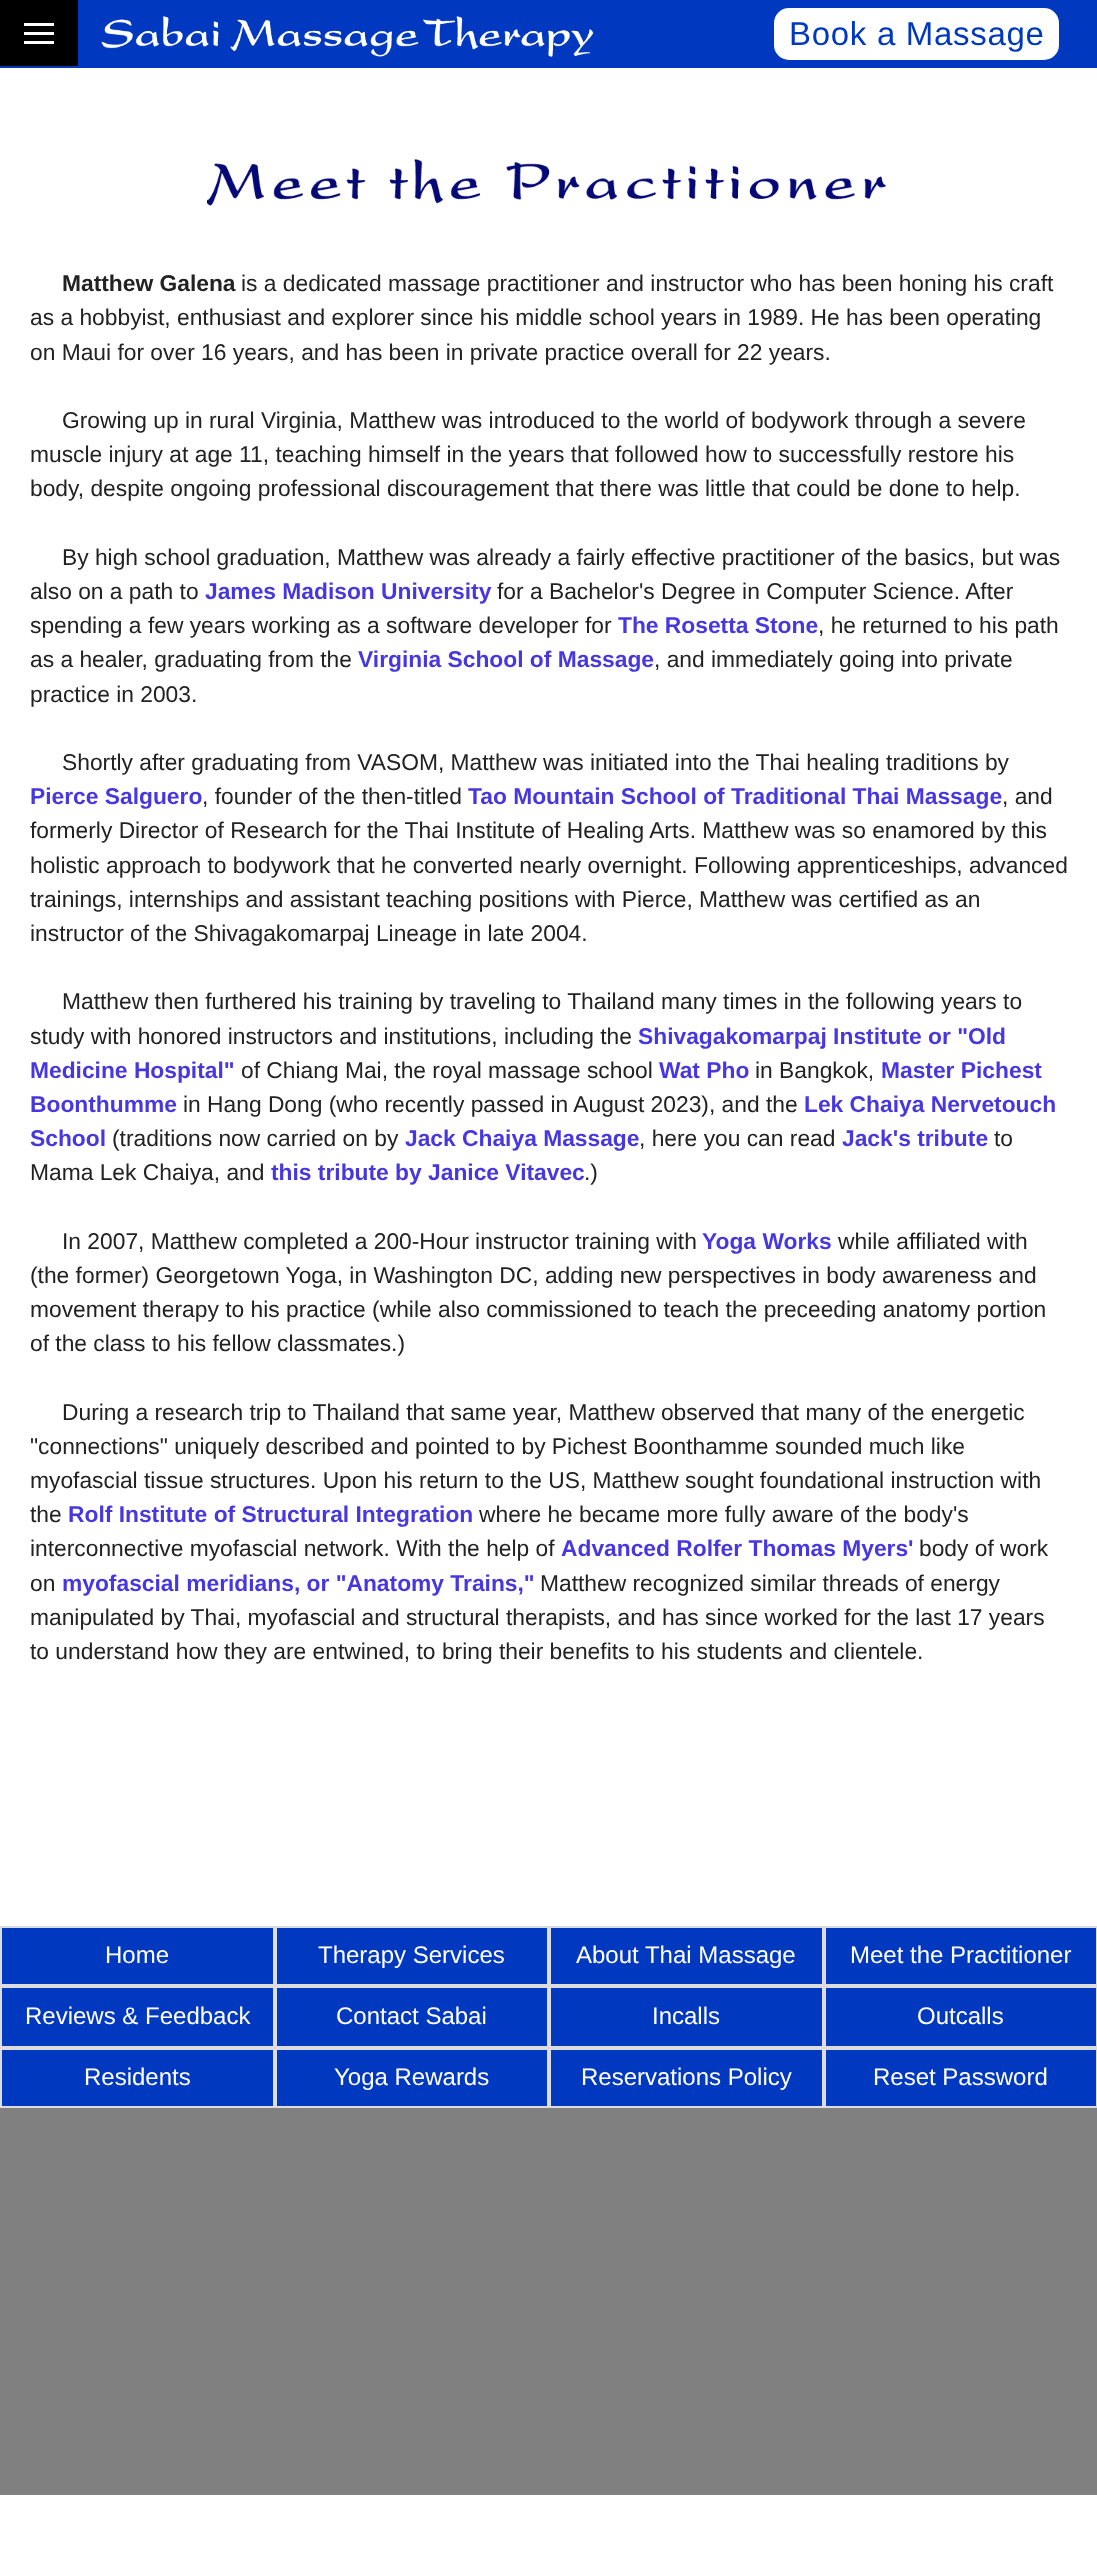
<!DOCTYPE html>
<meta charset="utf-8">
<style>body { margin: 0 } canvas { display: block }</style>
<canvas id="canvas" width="1097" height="2570"></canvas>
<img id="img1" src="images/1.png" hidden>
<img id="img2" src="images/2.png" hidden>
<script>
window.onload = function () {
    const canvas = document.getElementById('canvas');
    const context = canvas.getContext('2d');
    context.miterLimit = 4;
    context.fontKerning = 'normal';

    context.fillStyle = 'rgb(255, 255, 255)';
    context.fillRect(0, 0, 1097, 2570);
    context.fillStyle = 'rgb(0, 57, 191)';
    context.fillRect(0, 0, 1097, 68);
    context.fillStyle = 'rgb(0, 0, 0)';
    context.fillRect(0, 0, 78, 66);
    context.fillStyle = 'rgb(255, 255, 255)';
    context.fillRect(24, 32, 30, 3);
    context.fillRect(24, 23, 30, 3);
    context.fillRect(24, 41, 30, 3);
    context.drawImage(document.getElementById('img1'), 101, 16, 493, 41);
    context.beginPath();
    context.roundRect(774, 8, 285, 52, 15);
    context.fill();
    context.drawImage(document.getElementById('img2'), 207, 159, 679, 47);
    context.fillStyle = 'rgb(0, 57, 191)';
    context.beginPath();
    context.rect(1, 1927, 273, 58);
    context.fill();
    context.strokeStyle = 'rgb(221, 221, 221)';
    context.lineWidth = 2;
    context.stroke();
    context.beginPath();
    context.rect(276, 1927, 272, 58);
    context.fill();
    context.stroke();
    context.beginPath();
    context.rect(550, 1927, 273, 58);
    context.fill();
    context.stroke();
    context.beginPath();
    context.rect(825, 1927, 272, 58);
    context.fill();
    context.stroke();
    context.beginPath();
    context.rect(1, 1987, 273, 60);
    context.fill();
    context.stroke();
    context.beginPath();
    context.rect(276, 1987, 272, 60);
    context.fill();
    context.stroke();
    context.beginPath();
    context.rect(550, 1987, 273, 60);
    context.fill();
    context.stroke();
    context.beginPath();
    context.rect(825, 1987, 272, 60);
    context.fill();
    context.stroke();
    context.beginPath();
    context.rect(1, 2049, 273, 58);
    context.fill();
    context.stroke();
    context.beginPath();
    context.rect(276, 2049, 272, 58);
    context.fill();
    context.stroke();
    context.beginPath();
    context.rect(550, 2049, 273, 58);
    context.fill();
    context.stroke();
    context.beginPath();
    context.rect(825, 2049, 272, 58);
    context.fill();
    context.stroke();
    context.fillStyle = 'rgb(128, 128, 128)';
    context.fillRect(0, 2108, 1097, 387);
    context.letterSpacing = '0.7px';
    context.font = '33px Liberation Sans';
    context.fillStyle = 'rgb(0, 57, 191)';
    context.fillText('Book a Massage', 789, 45);
    context.letterSpacing = '0px';
    context.font = 'bold 22.8px Liberation Sans';
    context.fillStyle = 'rgb(34, 34, 34)';
    context.fillText('Matthew Galena', 62, 291);
    context.font = '22.8px Liberation Sans';
    context.fillText('is a dedicated massage practitioner and instructor who has been honing his craft', 241, 291);
    context.fillText('as a hobbyist, enthusiast and explorer since his middle school years in 1989. He has been operating', 30, 325);
    context.fillText('on Maui for over 16 years, and has been in private practice overall for 22 years.', 30, 360);
    context.fillText('Growing up in rural Virginia, Matthew was introduced to the world of bodywork through a severe', 62, 428);
    context.fillText('muscle injury at age 11, teaching himself in the years that followed how to successfully restore his', 30, 462);
    context.fillText('body, despite ongoing professional discouragement that there was little that could be done to help.', 30, 496);
    context.fillText('By high school graduation, Matthew was already a fairly effective practitioner of the basics, but was', 62, 565);
    context.fillText('also on a path to', 30, 599);
    context.font = 'bold 22.8px Liberation Sans';
    context.fillStyle = 'rgb(71, 55, 225)';
    context.fillText('James Madison University', 205, 599);
    context.font = '22.8px Liberation Sans';
    context.fillStyle = 'rgb(34, 34, 34)';
    context.fillText('for a Bachelor\'s Degree in Computer Science. After', 497, 599);
    context.fillText('spending a few years working as a software developer for', 30, 633);
    context.font = 'bold 22.8px Liberation Sans';
    context.fillStyle = 'rgb(71, 55, 225)';
    context.fillText('The Rosetta Stone', 618, 633);
    context.font = '22.8px Liberation Sans';
    context.fillStyle = 'rgb(34, 34, 34)';
    context.fillText(', he returned to his path', 818, 633);
    context.fillText('as a healer, graduating from the', 30, 667);
    context.font = 'bold 22.8px Liberation Sans';
    context.fillStyle = 'rgb(71, 55, 225)';
    context.fillText('Virginia School of Massage', 358, 667);
    context.font = '22.8px Liberation Sans';
    context.fillStyle = 'rgb(34, 34, 34)';
    context.fillText(', and immediately going into private', 654, 667);
    context.fillText('practice in 2003.', 30, 702);
    context.fillText('Shortly after graduating from VASOM, Matthew was initiated into the Thai healing traditions by', 62, 770);
    context.font = 'bold 22.8px Liberation Sans';
    context.fillStyle = 'rgb(71, 55, 225)';
    context.fillText('Pierce Salguero', 30, 804);
    context.font = '22.8px Liberation Sans';
    context.fillStyle = 'rgb(34, 34, 34)';
    context.fillText(', founder of the then-titled', 202, 804);
    context.font = 'bold 22.8px Liberation Sans';
    context.fillStyle = 'rgb(71, 55, 225)';
    context.fillText('Tao Mountain School of Traditional Thai Massage', 468, 804);
    context.font = '22.8px Liberation Sans';
    context.fillStyle = 'rgb(34, 34, 34)';
    context.fillText(', and', 1002, 804);
    context.fillText('formerly Director of Research for the Thai Institute of Healing Arts. Matthew was so enamored by this', 30, 838);
    context.fillText('holistic approach to bodywork that he converted nearly overnight. Following apprenticeships, advanced', 30, 873);
    context.fillText('trainings, internships and assistant teaching positions with Pierce, Matthew was certified as an', 30, 907);
    context.fillText('instructor of the Shivagakomarpaj Lineage in late 2004.', 30, 941);
    context.fillText('Matthew then furthered his training by traveling to Thailand many times in the following years to', 62, 1009);
    context.fillText('study with honored instructors and institutions, including the', 30, 1044);
    context.font = 'bold 22.8px Liberation Sans';
    context.fillStyle = 'rgb(71, 55, 225)';
    context.fillText('Shivagakomarpaj Institute or "Old', 638, 1044);
    context.fillText('Medicine Hospital"', 30, 1078);
    context.font = '22.8px Liberation Sans';
    context.fillStyle = 'rgb(34, 34, 34)';
    context.fillText('of Chiang Mai, the royal massage school', 241, 1078);
    context.font = 'bold 22.8px Liberation Sans';
    context.fillStyle = 'rgb(71, 55, 225)';
    context.fillText('Wat Pho', 659, 1078);
    context.font = '22.8px Liberation Sans';
    context.fillStyle = 'rgb(34, 34, 34)';
    context.fillText('in Bangkok,', 755, 1078);
    context.font = 'bold 22.8px Liberation Sans';
    context.fillStyle = 'rgb(71, 55, 225)';
    context.fillText('Master Pichest', 881, 1078);
    context.fillText('Boonthumme', 30, 1112);
    context.font = '22.8px Liberation Sans';
    context.fillStyle = 'rgb(34, 34, 34)';
    context.fillText('in Hang Dong (who recently passed in August 2023), and the', 183, 1112);
    context.font = 'bold 22.8px Liberation Sans';
    context.fillStyle = 'rgb(71, 55, 225)';
    context.fillText('Lek Chaiya Nervetouch', 804, 1112);
    context.fillText('School', 30, 1146);
    context.font = '22.8px Liberation Sans';
    context.fillStyle = 'rgb(34, 34, 34)';
    context.fillText('(traditions now carried on by', 112, 1146);
    context.font = 'bold 22.8px Liberation Sans';
    context.fillStyle = 'rgb(71, 55, 225)';
    context.fillText('Jack Chaiya Massage', 405, 1146);
    context.font = '22.8px Liberation Sans';
    context.fillStyle = 'rgb(34, 34, 34)';
    context.fillText(', here you can read', 639, 1146);
    context.font = 'bold 22.8px Liberation Sans';
    context.fillStyle = 'rgb(71, 55, 225)';
    context.fillText('Jack\'s tribute', 842, 1146);
    context.font = '22.8px Liberation Sans';
    context.fillStyle = 'rgb(34, 34, 34)';
    context.fillText('to', 994, 1146);
    context.fillText('Mama Lek Chaiya, and', 30, 1180);
    context.font = 'bold 22.8px Liberation Sans';
    context.fillStyle = 'rgb(71, 55, 225)';
    context.fillText('this tribute by Janice Vitavec', 271, 1180);
    context.font = '22.8px Liberation Sans';
    context.fillStyle = 'rgb(34, 34, 34)';
    context.fillText('.)', 584, 1180);
    context.fillText('In 2007, Matthew completed a 200-Hour instructor training with', 62, 1249);
    context.font = 'bold 22.8px Liberation Sans';
    context.fillStyle = 'rgb(71, 55, 225)';
    context.fillText('Yoga Works', 702, 1249);
    context.font = '22.8px Liberation Sans';
    context.fillStyle = 'rgb(34, 34, 34)';
    context.fillText('while affiliated with', 838, 1249);
    context.fillText('(the former) Georgetown Yoga, in Washington DC, adding new perspectives in body awareness and', 30, 1283);
    context.fillText('movement therapy to his practice (while also commissioned to teach the preceeding anatomy portion', 30, 1317);
    context.fillText('of the class to his fellow classmates.)', 30, 1351);
    context.fillText('During a research trip to Thailand that same year, Matthew observed that many of the energetic', 62, 1420);
    context.fillText('"connections" uniquely described and pointed to by Pichest Boonthamme sounded much like', 30, 1454);
    context.fillText('myofascial tissue structures. Upon his return to the US, Matthew sought foundational instruction with', 30, 1488);
    context.fillText('the', 30, 1522);
    context.font = 'bold 22.8px Liberation Sans';
    context.fillStyle = 'rgb(71, 55, 225)';
    context.fillText('Rolf Institute of Structural Integration', 68, 1522);
    context.font = '22.8px Liberation Sans';
    context.fillStyle = 'rgb(34, 34, 34)';
    context.fillText('where he became more fully aware of the body\'s', 479, 1522);
    context.fillText('interconnective myofascial network. With the help of', 30, 1556);
    context.font = 'bold 22.8px Liberation Sans';
    context.fillStyle = 'rgb(71, 55, 225)';
    context.fillText('Advanced Rolfer Thomas Myers\'', 561, 1556);
    context.font = '22.8px Liberation Sans';
    context.fillStyle = 'rgb(34, 34, 34)';
    context.fillText('body of work', 919, 1556);
    context.fillText('on', 30, 1591);
    context.font = 'bold 22.8px Liberation Sans';
    context.fillStyle = 'rgb(71, 55, 225)';
    context.fillText('myofascial meridians, or "Anatomy Trains,"', 62, 1591);
    context.font = '22.8px Liberation Sans';
    context.fillStyle = 'rgb(34, 34, 34)';
    context.fillText('Matthew recognized similar threads of energy', 540, 1591);
    context.fillText('manipulated by Thai, myofascial and structural therapists, and has since worked for the last 17 years', 30, 1625);
    context.fillText('to understand how they are entwined, to bring their benefits to his students and clientele.', 30, 1659);
    context.font = '24px Liberation Sans';
    context.fillStyle = 'rgb(255, 255, 255)';
    context.fillText('Home', 105, 1963);
    context.fillText('Therapy Services', 318, 1963);
    context.fillText('About Thai Massage', 576, 1963);
    context.fillText('Meet the Practitioner', 850, 1963);
    context.fillText('Reviews & Feedback', 25, 2024);
    context.fillText('Contact Sabai', 336, 2024);
    context.fillText('Incalls', 652, 2024);
    context.fillText('Outcalls', 917, 2024);
    context.fillText('Residents', 84, 2085);
    context.fillText('Yoga Rewards', 334, 2085);
    context.fillText('Reservations Policy', 581, 2085);
    context.fillText('Reset Password', 873, 2085);
};
</script>
